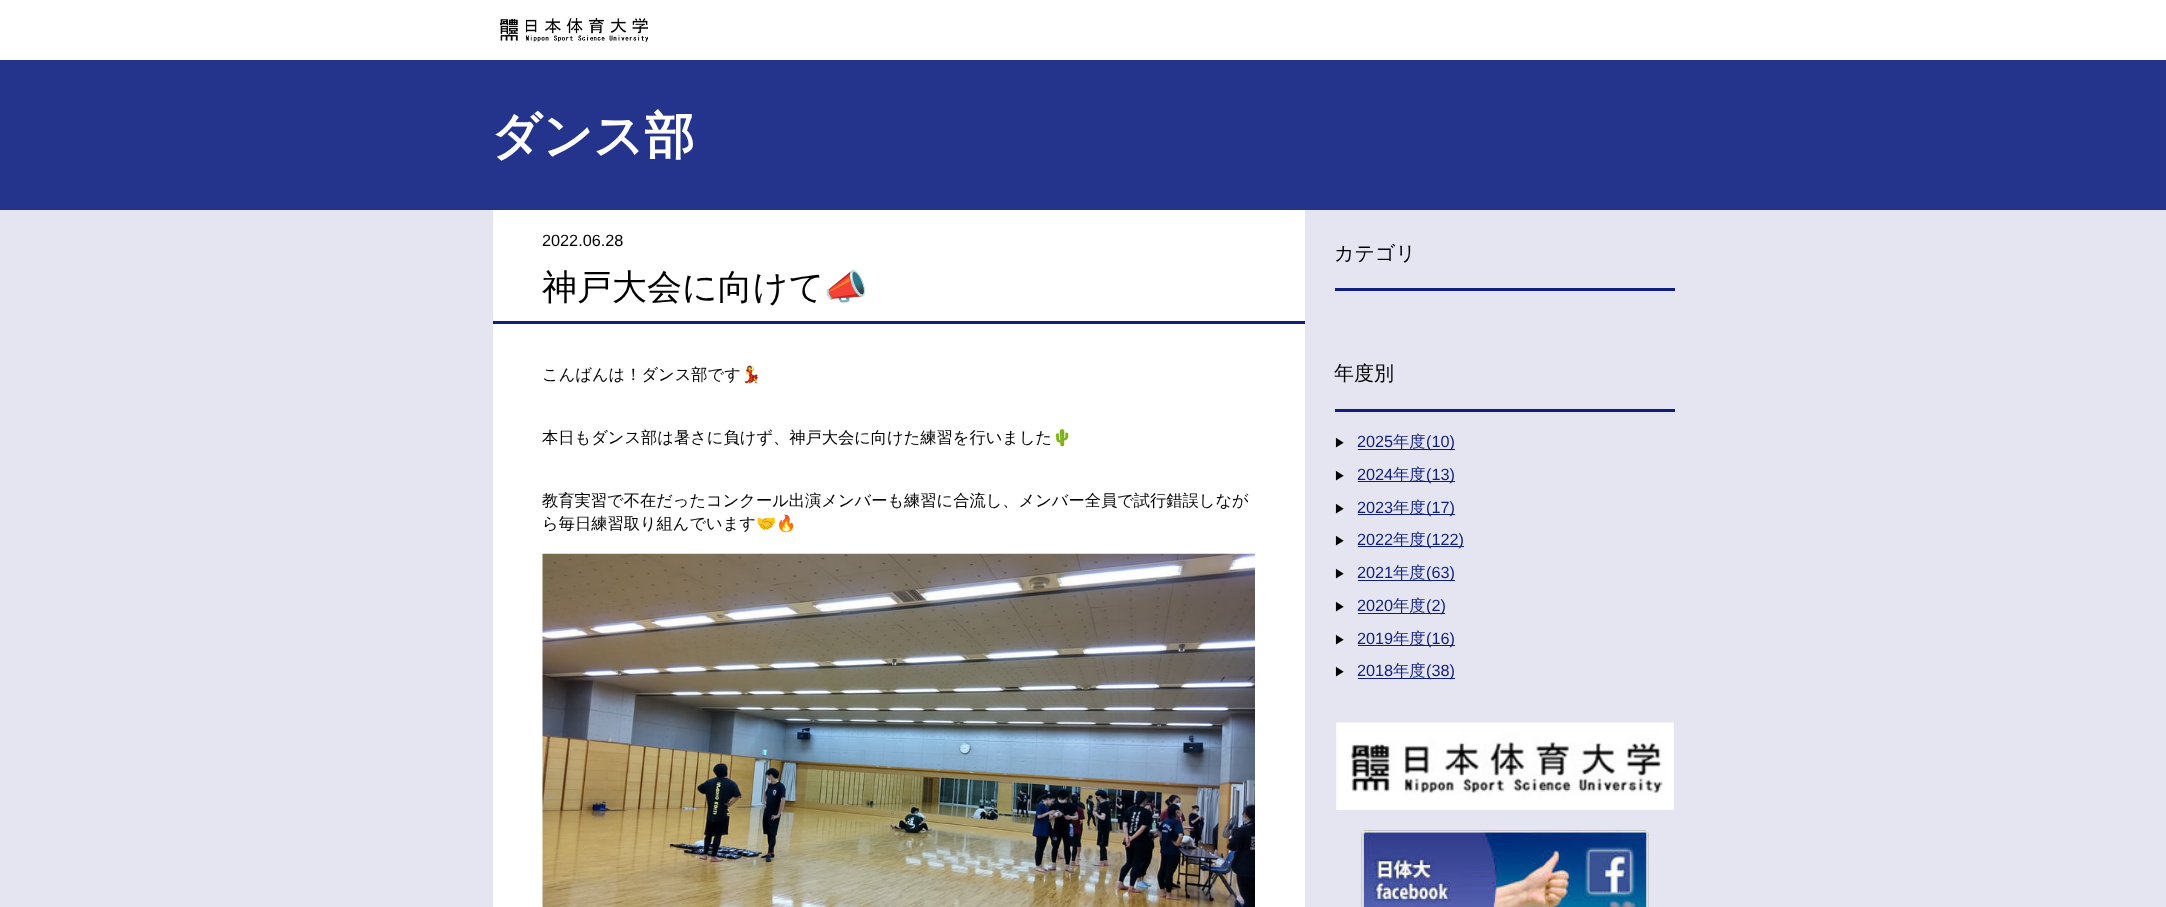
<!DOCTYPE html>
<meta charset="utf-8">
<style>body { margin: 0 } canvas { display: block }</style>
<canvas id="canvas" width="2166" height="907"></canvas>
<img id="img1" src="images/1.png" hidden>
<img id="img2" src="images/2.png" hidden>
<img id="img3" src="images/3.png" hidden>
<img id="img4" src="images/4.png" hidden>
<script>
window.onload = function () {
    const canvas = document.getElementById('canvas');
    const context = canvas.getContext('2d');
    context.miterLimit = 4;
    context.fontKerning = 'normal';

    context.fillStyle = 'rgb(255, 255, 255)';
    context.fillRect(0, 0, 2166, 907);
    context.drawImage(document.getElementById('img1'), 500, 17, 149, 26);
    context.fillStyle = 'rgb(36, 52, 141)';
    context.fillRect(0, 60, 2166, 150);
    context.fillStyle = 'rgb(228, 229, 241)';
    context.fillRect(0, 210, 2166, 697);
    context.fillStyle = 'rgb(255, 255, 255)';
    context.fillRect(493, 210, 812, 697);
    context.fillStyle = 'rgb(15, 30, 128)';
    context.fillRect(493, 321, 812, 3);
    context.drawImage(document.getElementById('img2'), 542, 553, 713, 354);
    context.fillRect(1335, 288, 340, 3);
    context.fillRect(1335, 409, 340, 3);
    context.fillRect(1358, 449, 97, 1);
    context.fillRect(1358, 481, 97, 1);
    context.fillRect(1358, 514, 97, 1);
    context.fillRect(1358, 546, 106, 1);
    context.fillRect(1358, 580, 97, 1);
    context.fillRect(1358, 613, 87, 1);
    context.fillRect(1358, 645, 97, 1);
    context.fillRect(1358, 678, 97, 1);
    context.drawImage(document.getElementById('img3'), 1336, 722, 338, 88);
    context.drawImage(document.getElementById('img4'), 1361, 830, 288, 77);
    context.font = 'bold 50px WenQuanYi Zen Hei';
    context.fillStyle = 'rgb(255, 255, 255)';
    context.fillText('ダンス部', 491, 153);
    context.font = '16.25px Liberation Sans';
    context.fillStyle = 'rgb(0, 0, 0)';
    context.fillText('2022.06.28', 542, 246);
    context.font = '500 35px WenQuanYi Zen Hei';
    context.fillText('神戸大会に向けて', 542, 299);
    context.font = '35px Noto Color Emoji';
    context.fillText('📣', 824, 299);
    context.font = '500 16.25px WenQuanYi Zen Hei';
    context.fillText('こんばんは！ダンス部です', 542, 380);
    context.font = '16.25px Noto Color Emoji';
    context.fillText('💃', 741, 380);
    context.font = '500 16.25px WenQuanYi Zen Hei';
    context.fillText('本日もダンス部は暑さに負けず、神戸大会に向けた練習を行いました', 542, 443);
    context.font = '16.25px Noto Color Emoji';
    context.fillText('🌵', 1052, 443);
    context.font = '500 16.25px WenQuanYi Zen Hei';
    context.fillText('教育実習で不在だったコンクール出演メンバーも練習に合流し、メンバー全員で試行錯誤しなが', 542, 506);
    context.fillText('ら毎日練習取り組んでいます', 542, 529);
    context.font = '16.25px Noto Color Emoji';
    context.fillText('🤝🔥', 756, 529);
    context.font = '500 20px WenQuanYi Zen Hei';
    context.fillText('カテゴリ', 1334, 260);
    context.fillText('年度別', 1334, 380);
    context.font = '500 12px WenQuanYi Zen Hei';
    context.fillText('▶︎', 1334, 447);
    context.font = '16.25px Liberation Sans';
    context.fillStyle = 'rgb(15, 30, 128)';
    context.fillText('2025', 1357, 447);
    context.font = '500 16.25px WenQuanYi Zen Hei';
    context.fillText('年度', 1393, 447);
    context.font = '16.25px Liberation Sans';
    context.fillText('(10)', 1426, 447);
    context.font = '500 12px WenQuanYi Zen Hei';
    context.fillStyle = 'rgb(0, 0, 0)';
    context.fillText('▶︎', 1334, 480);
    context.font = '16.25px Liberation Sans';
    context.fillStyle = 'rgb(15, 30, 128)';
    context.fillText('2024', 1357, 480);
    context.font = '500 16.25px WenQuanYi Zen Hei';
    context.fillText('年度', 1393, 480);
    context.font = '16.25px Liberation Sans';
    context.fillText('(13)', 1426, 480);
    context.font = '500 12px WenQuanYi Zen Hei';
    context.fillStyle = 'rgb(0, 0, 0)';
    context.fillText('▶︎', 1334, 513);
    context.font = '16.25px Liberation Sans';
    context.fillStyle = 'rgb(15, 30, 128)';
    context.fillText('2023', 1357, 513);
    context.font = '500 16.25px WenQuanYi Zen Hei';
    context.fillText('年度', 1393, 513);
    context.font = '16.25px Liberation Sans';
    context.fillText('(17)', 1426, 513);
    context.font = '500 12px WenQuanYi Zen Hei';
    context.fillStyle = 'rgb(0, 0, 0)';
    context.fillText('▶︎', 1334, 545);
    context.font = '16.25px Liberation Sans';
    context.fillStyle = 'rgb(15, 30, 128)';
    context.fillText('2022', 1357, 545);
    context.font = '500 16.25px WenQuanYi Zen Hei';
    context.fillText('年度', 1393, 545);
    context.font = '16.25px Liberation Sans';
    context.fillText('(122)', 1426, 545);
    context.font = '500 12px WenQuanYi Zen Hei';
    context.fillStyle = 'rgb(0, 0, 0)';
    context.fillText('▶︎', 1334, 578);
    context.font = '16.25px Liberation Sans';
    context.fillStyle = 'rgb(15, 30, 128)';
    context.fillText('2021', 1357, 578);
    context.font = '500 16.25px WenQuanYi Zen Hei';
    context.fillText('年度', 1393, 578);
    context.font = '16.25px Liberation Sans';
    context.fillText('(63)', 1426, 578);
    context.font = '500 12px WenQuanYi Zen Hei';
    context.fillStyle = 'rgb(0, 0, 0)';
    context.fillText('▶︎', 1334, 611);
    context.font = '16.25px Liberation Sans';
    context.fillStyle = 'rgb(15, 30, 128)';
    context.fillText('2020', 1357, 611);
    context.font = '500 16.25px WenQuanYi Zen Hei';
    context.fillText('年度', 1393, 611);
    context.font = '16.25px Liberation Sans';
    context.fillText('(2)', 1426, 611);
    context.font = '500 12px WenQuanYi Zen Hei';
    context.fillStyle = 'rgb(0, 0, 0)';
    context.fillText('▶︎', 1334, 644);
    context.font = '16.25px Liberation Sans';
    context.fillStyle = 'rgb(15, 30, 128)';
    context.fillText('2019', 1357, 644);
    context.font = '500 16.25px WenQuanYi Zen Hei';
    context.fillText('年度', 1393, 644);
    context.font = '16.25px Liberation Sans';
    context.fillText('(16)', 1426, 644);
    context.font = '500 12px WenQuanYi Zen Hei';
    context.fillStyle = 'rgb(0, 0, 0)';
    context.fillText('▶︎', 1334, 676);
    context.font = '16.25px Liberation Sans';
    context.fillStyle = 'rgb(15, 30, 128)';
    context.fillText('2018', 1357, 676);
    context.font = '500 16.25px WenQuanYi Zen Hei';
    context.fillText('年度', 1393, 676);
    context.font = '16.25px Liberation Sans';
    context.fillText('(38)', 1426, 676);
};
</script>
